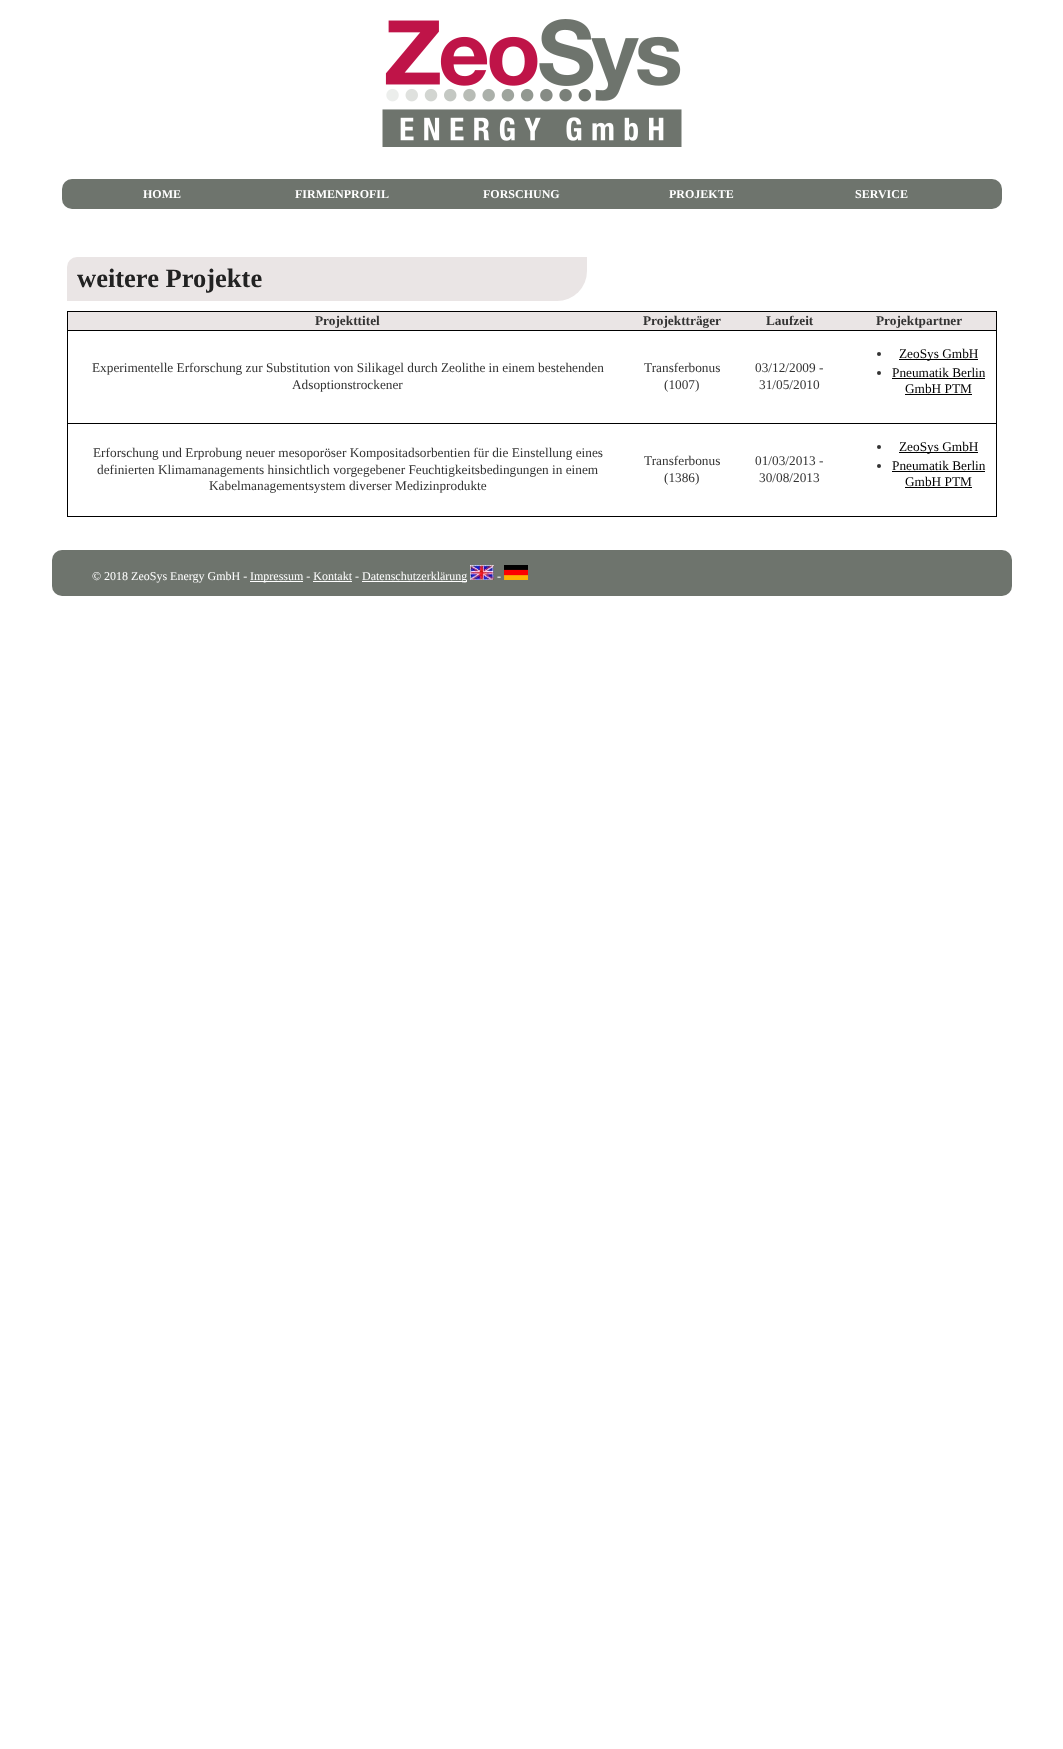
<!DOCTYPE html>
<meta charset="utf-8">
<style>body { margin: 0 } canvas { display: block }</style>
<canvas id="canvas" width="1063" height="1749"></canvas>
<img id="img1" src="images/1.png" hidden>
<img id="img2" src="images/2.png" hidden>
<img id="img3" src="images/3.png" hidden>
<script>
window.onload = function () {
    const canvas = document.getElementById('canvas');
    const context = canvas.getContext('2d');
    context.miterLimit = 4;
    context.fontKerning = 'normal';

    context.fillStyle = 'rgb(255, 255, 255)';
    context.fillRect(0, 0, 1063, 1749);
    context.drawImage(document.getElementById('img1'), 382, 19, 300, 128);
    context.fillStyle = 'rgb(110, 116, 109)';
    context.beginPath();
    context.roundRect(62, 179, 940, 30, 10);
    context.fill();
    context.fillStyle = 'rgb(234, 229, 229)';
    context.beginPath();
    context.roundRect(67, 257, 520, 44, [10, 0, 30, 0]);
    context.fill();
    context.fillStyle = 'rgb(0, 0, 0)';
    context.fillRect(67, 311, 930, 1);
    context.fillRect(67, 330, 930, 1);
    context.fillRect(67, 423, 930, 1);
    context.fillRect(996, 423, 1, 94);
    context.fillRect(996, 330, 1, 94);
    context.fillRect(996, 311, 1, 20);
    context.fillRect(67, 516, 930, 1);
    context.fillRect(67, 423, 1, 94);
    context.fillRect(67, 330, 1, 94);
    context.fillRect(67, 311, 1, 20);
    context.fillStyle = 'rgb(234, 229, 229)';
    context.fillRect(68, 312, 928, 18);
    context.fillStyle = 'rgb(51, 51, 51)';
    context.beginPath();
    context.arc(879, 354, 2, 0, 2 * Math.PI);
    context.fill();
    context.fillStyle = 'rgb(0, 0, 0)';
    context.fillRect(899, 359, 79, 1);
    context.fillStyle = 'rgb(51, 51, 51)';
    context.beginPath();
    context.arc(879, 373, 2, 0, 2 * Math.PI);
    context.fill();
    context.fillStyle = 'rgb(0, 0, 0)';
    context.fillRect(892, 378, 93, 1);
    context.fillRect(905, 394, 67, 1);
    context.fillStyle = 'rgb(51, 51, 51)';
    context.beginPath();
    context.arc(879, 447, 2, 0, 2 * Math.PI);
    context.fill();
    context.fillStyle = 'rgb(0, 0, 0)';
    context.fillRect(899, 452, 79, 1);
    context.fillStyle = 'rgb(51, 51, 51)';
    context.beginPath();
    context.arc(879, 466, 2, 0, 2 * Math.PI);
    context.fill();
    context.fillStyle = 'rgb(0, 0, 0)';
    context.fillRect(892, 471, 93, 1);
    context.fillRect(905, 487, 67, 1);
    context.fillStyle = 'rgb(110, 116, 109)';
    context.beginPath();
    context.roundRect(52, 550, 960, 46, 10);
    context.fill();
    context.fillStyle = 'rgb(255, 255, 255)';
    context.fillRect(250, 581, 53, 1);
    context.fillRect(362, 581, 105, 1);
    context.drawImage(document.getElementById('img2'), 470, 565, 24, 15);
    context.drawImage(document.getElementById('img3'), 504, 565, 24, 15);
    context.fillRect(313, 581, 39, 1);
    context.font = 'bold 12px Liberation Serif';
    context.fillText('HOME', 143, 198);
    context.fillText('FIRMENPROFIL', 295, 198);
    context.fillText('FORSCHUNG', 483, 198);
    context.fillText('PROJEKTE', 669, 198);
    context.fillText('SERVICE', 855, 198);
    context.font = 'bold 26.5px Liberation Serif';
    context.fillStyle = 'rgb(34, 34, 34)';
    context.fillText('weitere Projekte', 77, 287);
    context.font = 'bold 13.3px Liberation Serif';
    context.fillStyle = 'rgb(51, 51, 51)';
    context.fillText('Projekttitel', 315, 325);
    context.fillText('Projektträger', 643, 325);
    context.fillText('Laufzeit', 766, 325);
    context.fillText('Projektpartner', 876, 325);
    context.font = '13.3px Liberation Serif';
    context.fillText('Experimentelle Erforschung zur Substitution von Silikagel durch Zeolithe in einem bestehenden', 92, 372);
    context.fillText('Adsoptionstrockener', 292, 389);
    context.fillText('Transferbonus', 644, 372);
    context.fillText('(1007)', 664, 389);
    context.fillText('03/12/2009 -', 755, 372);
    context.fillText('31/05/2010', 759, 389);
    context.fillStyle = 'rgb(0, 0, 0)';
    context.fillText('ZeoSys GmbH', 899, 358);
    context.fillText('Pneumatik Berlin', 892, 377);
    context.fillText('GmbH PTM', 905, 393);
    context.fillStyle = 'rgb(51, 51, 51)';
    context.fillText('Erforschung und Erprobung neuer mesoporöser Kompositadsorbentien für die Einstellung eines', 93, 457);
    context.fillText('definierten Klimamanagements hinsichtlich vorgegebener Feuchtigkeitsbedingungen in einem', 97, 474);
    context.fillText('Kabelmanagementsystem diverser Medizinprodukte', 209, 490);
    context.fillText('Transferbonus', 644, 465);
    context.fillText('(1386)', 664, 482);
    context.fillText('01/03/2013 -', 755, 465);
    context.fillText('30/08/2013', 759, 482);
    context.fillStyle = 'rgb(0, 0, 0)';
    context.fillText('ZeoSys GmbH', 899, 451);
    context.fillText('Pneumatik Berlin', 892, 470);
    context.fillText('GmbH PTM', 905, 486);
    context.font = '12px Liberation Serif';
    context.fillStyle = 'rgb(255, 255, 255)';
    context.fillText('© 2018 ZeoSys Energy GmbH -', 92, 580);
    context.fillText('Impressum - Kontakt -', 250, 580);
    context.fillText('Datenschutzerklärung', 362, 580);
    context.fillText('-', 497, 580);
};
</script>
